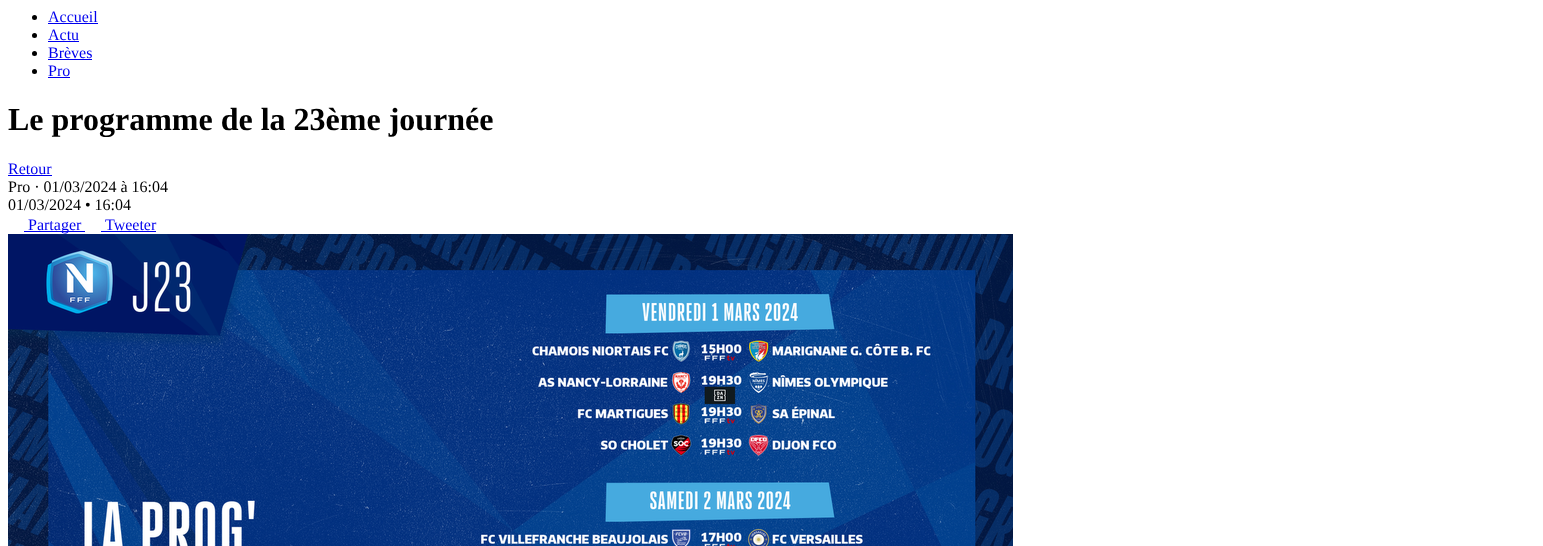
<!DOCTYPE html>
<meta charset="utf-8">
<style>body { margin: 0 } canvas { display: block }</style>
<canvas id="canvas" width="1543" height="546"></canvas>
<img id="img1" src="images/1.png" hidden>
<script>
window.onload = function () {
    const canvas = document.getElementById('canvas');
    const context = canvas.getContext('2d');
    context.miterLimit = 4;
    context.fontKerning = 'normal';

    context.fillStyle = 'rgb(255, 255, 255)';
    context.fillRect(0, 0, 1543, 546);
    context.fillStyle = 'rgb(0, 0, 0)';
    context.beginPath();
    context.arc(34.5, 17.5, 2.5, 0, 2 * Math.PI);
    context.fill();
    context.fillStyle = 'rgb(0, 0, 238)';
    context.fillRect(48, 23, 50, 1);
    context.fillStyle = 'rgb(0, 0, 0)';
    context.beginPath();
    context.arc(34.5, 35.5, 2.5, 0, 2 * Math.PI);
    context.fill();
    context.fillStyle = 'rgb(0, 0, 238)';
    context.fillRect(48, 41, 31, 1);
    context.fillStyle = 'rgb(0, 0, 0)';
    context.beginPath();
    context.arc(34.5, 53.5, 2.5, 0, 2 * Math.PI);
    context.fill();
    context.fillStyle = 'rgb(0, 0, 238)';
    context.fillRect(48, 59, 44, 1);
    context.fillStyle = 'rgb(0, 0, 0)';
    context.beginPath();
    context.arc(34.5, 71.5, 2.5, 0, 2 * Math.PI);
    context.fill();
    context.fillStyle = 'rgb(0, 0, 238)';
    context.fillRect(48, 77, 22, 1);
    context.fillRect(8, 175, 44, 1);
    context.fillRect(24, 231, 57, 1);
    context.fillRect(81, 231, 4, 1);
    context.fillRect(101, 231, 55, 1);
    context.drawImage(document.getElementById('img1'), 8, 234, 1005, 312);
    context.font = '16px Liberation Serif';
    context.fillText('Accueil', 48, 22);
    context.fillText('Actu', 48, 40);
    context.fillText('Brèves', 48, 58);
    context.fillText('Pro', 48, 76);
    context.font = 'bold 32px Liberation Serif';
    context.fillStyle = 'rgb(0, 0, 0)';
    context.fillText('Le programme de la 23ème journée', 8, 130);
    context.font = '16px Liberation Serif';
    context.fillStyle = 'rgb(0, 0, 238)';
    context.fillText('Retour', 8, 174);
    context.fillStyle = 'rgb(0, 0, 0)';
    context.fillText('Pro · 01/03/2024 à 16:04', 8, 192);
    context.fillText('01/03/2024 • 16:04', 8, 210);
    context.fillStyle = 'rgb(0, 0, 238)';
    context.fillText('Partager', 28, 230);
    context.fillText('Tweeter', 105, 230);
};
</script>
